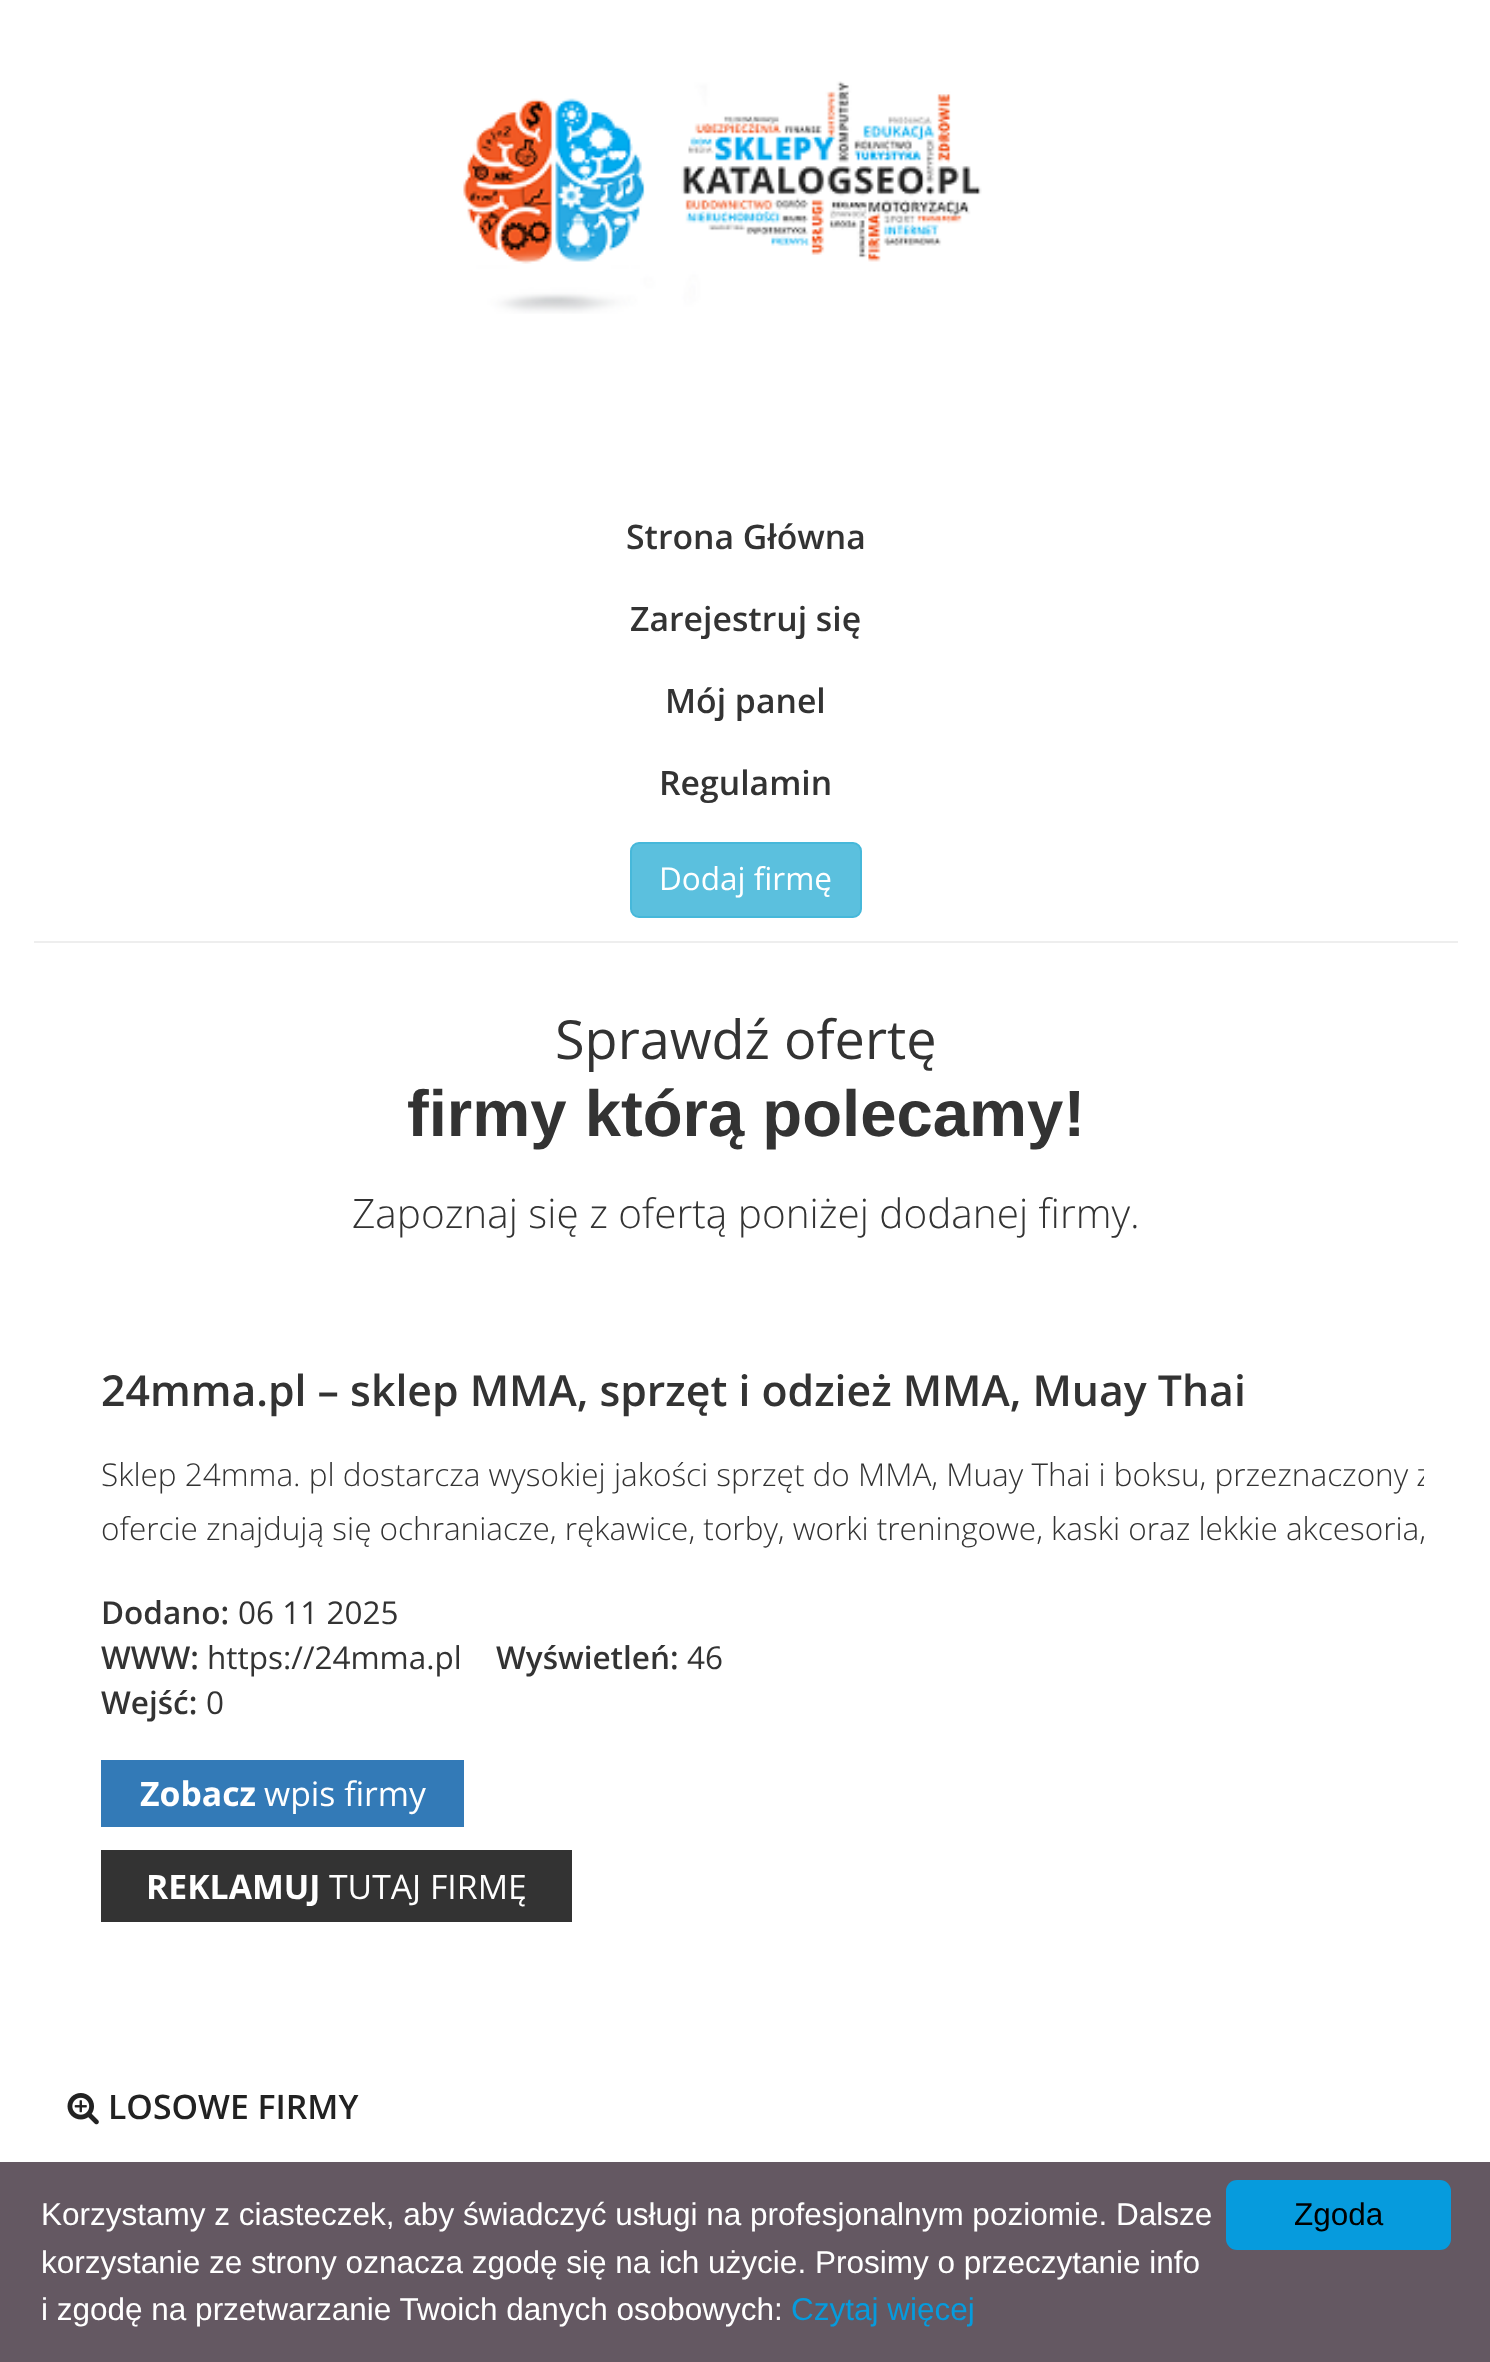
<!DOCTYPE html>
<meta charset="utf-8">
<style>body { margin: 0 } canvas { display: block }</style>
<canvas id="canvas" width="1490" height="2362"></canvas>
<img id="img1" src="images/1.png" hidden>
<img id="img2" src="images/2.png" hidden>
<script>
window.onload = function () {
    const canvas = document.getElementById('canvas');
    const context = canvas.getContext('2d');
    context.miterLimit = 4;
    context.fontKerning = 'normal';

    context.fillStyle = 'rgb(255, 255, 255)';
    context.fillRect(0, 0, 1490, 2362);
    context.drawImage(document.getElementById('img1'), 463, 81, 519, 233);
    context.fillStyle = 'rgb(91, 192, 222)';
    context.beginPath();
    context.roundRect(631, 843, 230, 74, 8);
    context.fill();
    context.strokeStyle = 'rgb(70, 184, 218)';
    context.lineWidth = 2;
    context.stroke();
    context.fillStyle = 'rgb(238, 238, 238)';
    context.fillRect(34, 941, 1424, 2);
    context.fillStyle = 'rgb(51, 122, 183)';
    context.fillRect(101, 1760, 363, 67);
    context.fillStyle = 'rgb(51, 51, 51)';
    context.fillRect(101, 1850, 471, 72);
    context.drawImage(document.getElementById('img2'), 67, 2093, 32, 32);
    context.fillStyle = 'rgb(100, 88, 98)';
    context.fillRect(0, 2162, 1490, 200);
    context.fillStyle = 'rgb(6, 155, 221)';
    context.beginPath();
    context.roundRect(1226, 2180, 225, 70, 11);
    context.fill();
    context.font = '600 33.75px Open Sans';
    context.fillStyle = 'rgb(51, 51, 51)';
    context.fillText('Strona Główna', 626, 549);
    context.fillText('Zarejestruj się', 630, 631);
    context.fillText('Mój panel', 665, 713);
    context.fillText('Regulamin', 659, 795);
    context.font = '31.5px Open Sans';
    context.fillStyle = 'rgb(255, 255, 255)';
    context.fillText('Dodaj firmę', 659, 890);
    context.font = '54px Open Sans';
    context.fillStyle = 'rgb(51, 51, 51)';
    context.fillText('Sprawdź ofertę', 555, 1059);
    context.font = 'bold 65.25px Liberation Sans';
    context.fillText('firmy którą polecamy!', 407, 1136);
    context.font = '300 40.5px Open Sans';
    context.fillText('Zapoznaj się z ofertą poniżej dodanej firmy.', 352, 1228);
    context.font = '600 42.75px Open Sans';
    context.fillText('24mma.pl – sklep MMA, sprzęt i odzież MMA, Muay Thai', 101, 1406);
    context.save();
    context.beginPath();
    context.rect(68, 1312, 1356, 675);
    context.clip();
    context.font = '300 31.5px Open Sans';
    context.fillText('Sklep 24mma. pl dostarcza wysokiej jakości sprzęt do MMA, Muay Thai i boksu, przeznaczony z', 101, 1486);
    context.restore();
    context.font = '300 31.5px Open Sans';
    context.fillText('ofercie znajdują się ochraniacze, rękawice, torby, worki treningowe, kaski oraz lekkie akcesoria,', 101, 1540);
    context.font = '600 31.5px Open Sans';
    context.fillText('Dodano:', 101, 1624);
    context.font = '31.5px Open Sans';
    context.fillText('06 11 2025', 238, 1624);
    context.font = '600 31.5px Open Sans';
    context.fillText('WWW:', 101, 1669);
    context.font = '31.5px Open Sans';
    context.fillText('https://24mma.pl', 207, 1669);
    context.font = '600 31.5px Open Sans';
    context.fillText('Wyświetleń:', 496, 1669);
    context.font = '31.5px Open Sans';
    context.fillText('46', 687, 1669);
    context.font = '600 31.5px Open Sans';
    context.fillText('Wejść:', 101, 1714);
    context.font = '31.5px Open Sans';
    context.fillText('0', 206, 1714);
    context.font = 'bold 33.75px Open Sans';
    context.fillStyle = 'rgb(255, 255, 255)';
    context.fillText('Zobacz', 140, 1806);
    context.font = '33.75px Open Sans';
    context.fillText('wpis firmy', 264, 1806);
    context.font = 'bold 33.75px Open Sans';
    context.fillText('REKLAMUJ', 146, 1899);
    context.font = '33.75px Open Sans';
    context.fillText('TUTAJ FIRMĘ', 329, 1899);
    context.font = '600 33.75px Open Sans';
    context.fillStyle = 'rgb(34, 34, 34)';
    context.fillText('LOSOWE FIRMY', 108, 2119);
    context.font = '31.5px Liberation Sans';
    context.fillStyle = 'rgb(255, 255, 255)';
    context.fillText('Korzystamy z ciasteczek, aby świadczyć usługi na profesjonalnym poziomie. Dalsze', 41, 2225);
    context.fillText('korzystanie ze strony oznacza zgodę się na ich użycie. Prosimy o przeczytanie info', 41, 2273);
    context.fillText('i zgodę na przetwarzanie Twoich danych osobowych:', 41, 2320);
    context.fillStyle = 'rgb(6, 155, 221)';
    context.fillText('Czytaj więcej', 791, 2320);
    context.fillStyle = 'rgb(0, 0, 0)';
    context.fillText('Zgoda', 1294, 2225);
};
</script>
